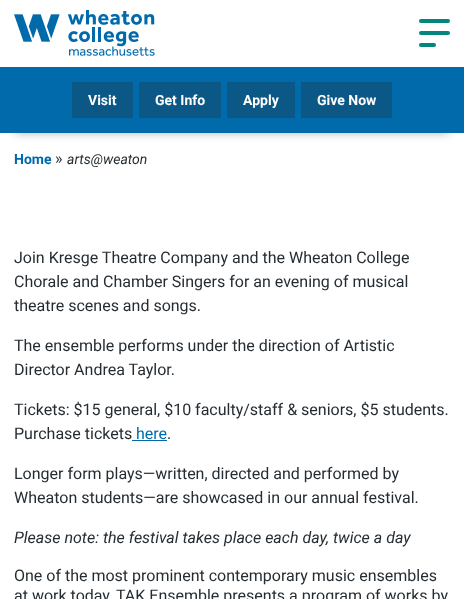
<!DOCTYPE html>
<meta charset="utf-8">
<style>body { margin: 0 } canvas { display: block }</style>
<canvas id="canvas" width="464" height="599"></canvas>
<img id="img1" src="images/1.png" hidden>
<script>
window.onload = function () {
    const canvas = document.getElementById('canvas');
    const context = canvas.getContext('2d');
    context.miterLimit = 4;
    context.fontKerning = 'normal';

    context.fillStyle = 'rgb(255, 255, 255)';
    context.fillRect(0, 0, 464, 599);
    context.drawImage(document.getElementById('img1'), 14, 10, 141, 46);
    context.fillStyle = 'rgb(4, 133, 126)';
    context.beginPath();
    context.roundRect(419, 19, 31, 4, 2);
    context.fill();
    context.beginPath();
    context.roundRect(419, 31, 31, 4, 2);
    context.fill();
    context.beginPath();
    context.roundRect(419, 43, 17, 4, 2);
    context.fill();
    context.fillStyle = 'rgba(0, 0, 0, 0.3)';
    context.filter = 'blur(5px)';
    context.beginPath();
    context.rect(15, 97, 434, 36);
    context.fill();
    context.filter = 'none';
    context.fillStyle = 'rgb(0, 106, 171)';
    context.fillRect(0, 67, 464, 66);
    context.fillStyle = 'rgb(11, 88, 135)';
    context.fillRect(72, 82, 61, 36);
    context.fillRect(139, 82, 82, 36);
    context.fillRect(227, 82, 68, 36);
    context.fillRect(301, 82, 91, 36);
    context.fillStyle = 'rgb(0, 106, 171)';
    context.fillRect(132, 440, 35, 1);
    context.font = 'bold 14px Roboto';
    context.fillStyle = 'rgb(255, 255, 255)';
    context.fillText('Visit', 88, 105);
    context.fillText('Get Info', 155, 105);
    context.fillText('Apply', 243, 105);
    context.fillText('Give Now', 317, 105);
    context.fillStyle = 'rgb(0, 106, 171)';
    context.fillText('Home', 14, 164);
    context.font = '16px Roboto';
    context.fillStyle = 'rgb(38, 45, 50)';
    context.fillText('»', 55, 164);
    context.font = 'italic 14px Roboto';
    context.fillText('arts@weaton', 67, 164);
    context.font = '16px Roboto';
    context.fillText('Join Kresge Theatre Company and the Wheaton College', 14, 263);
    context.fillText('Chorale and Chamber Singers for an evening of musical', 14, 287);
    context.fillText('theatre scenes and songs.', 14, 311);
    context.fillText('The ensemble performs under the direction of Artistic', 14, 351);
    context.fillText('Director Andrea Taylor.', 14, 375);
    context.fillText('Tickets: $15 general, $10 faculty/staff & seniors, $5 students.', 14, 415);
    context.fillText('Purchase tickets', 14, 439);
    context.fillStyle = 'rgb(0, 106, 171)';
    context.fillText('here', 136, 439);
    context.fillStyle = 'rgb(38, 45, 50)';
    context.fillText('.', 167, 439);
    context.fillText('Longer form plays—written, directed and performed by', 14, 479);
    context.fillText('Wheaton students—are showcased in our annual festival.', 14, 503);
    context.font = 'italic 16px Roboto';
    context.fillText('Please note: the festival takes place each day, twice a day', 14, 543);
    context.font = '16px Roboto';
    context.fillText('One of the most prominent contemporary music ensembles', 14, 581);
    context.fillText('at work today, TAK Ensemble presents a program of works by', 14, 601);
};
</script>
